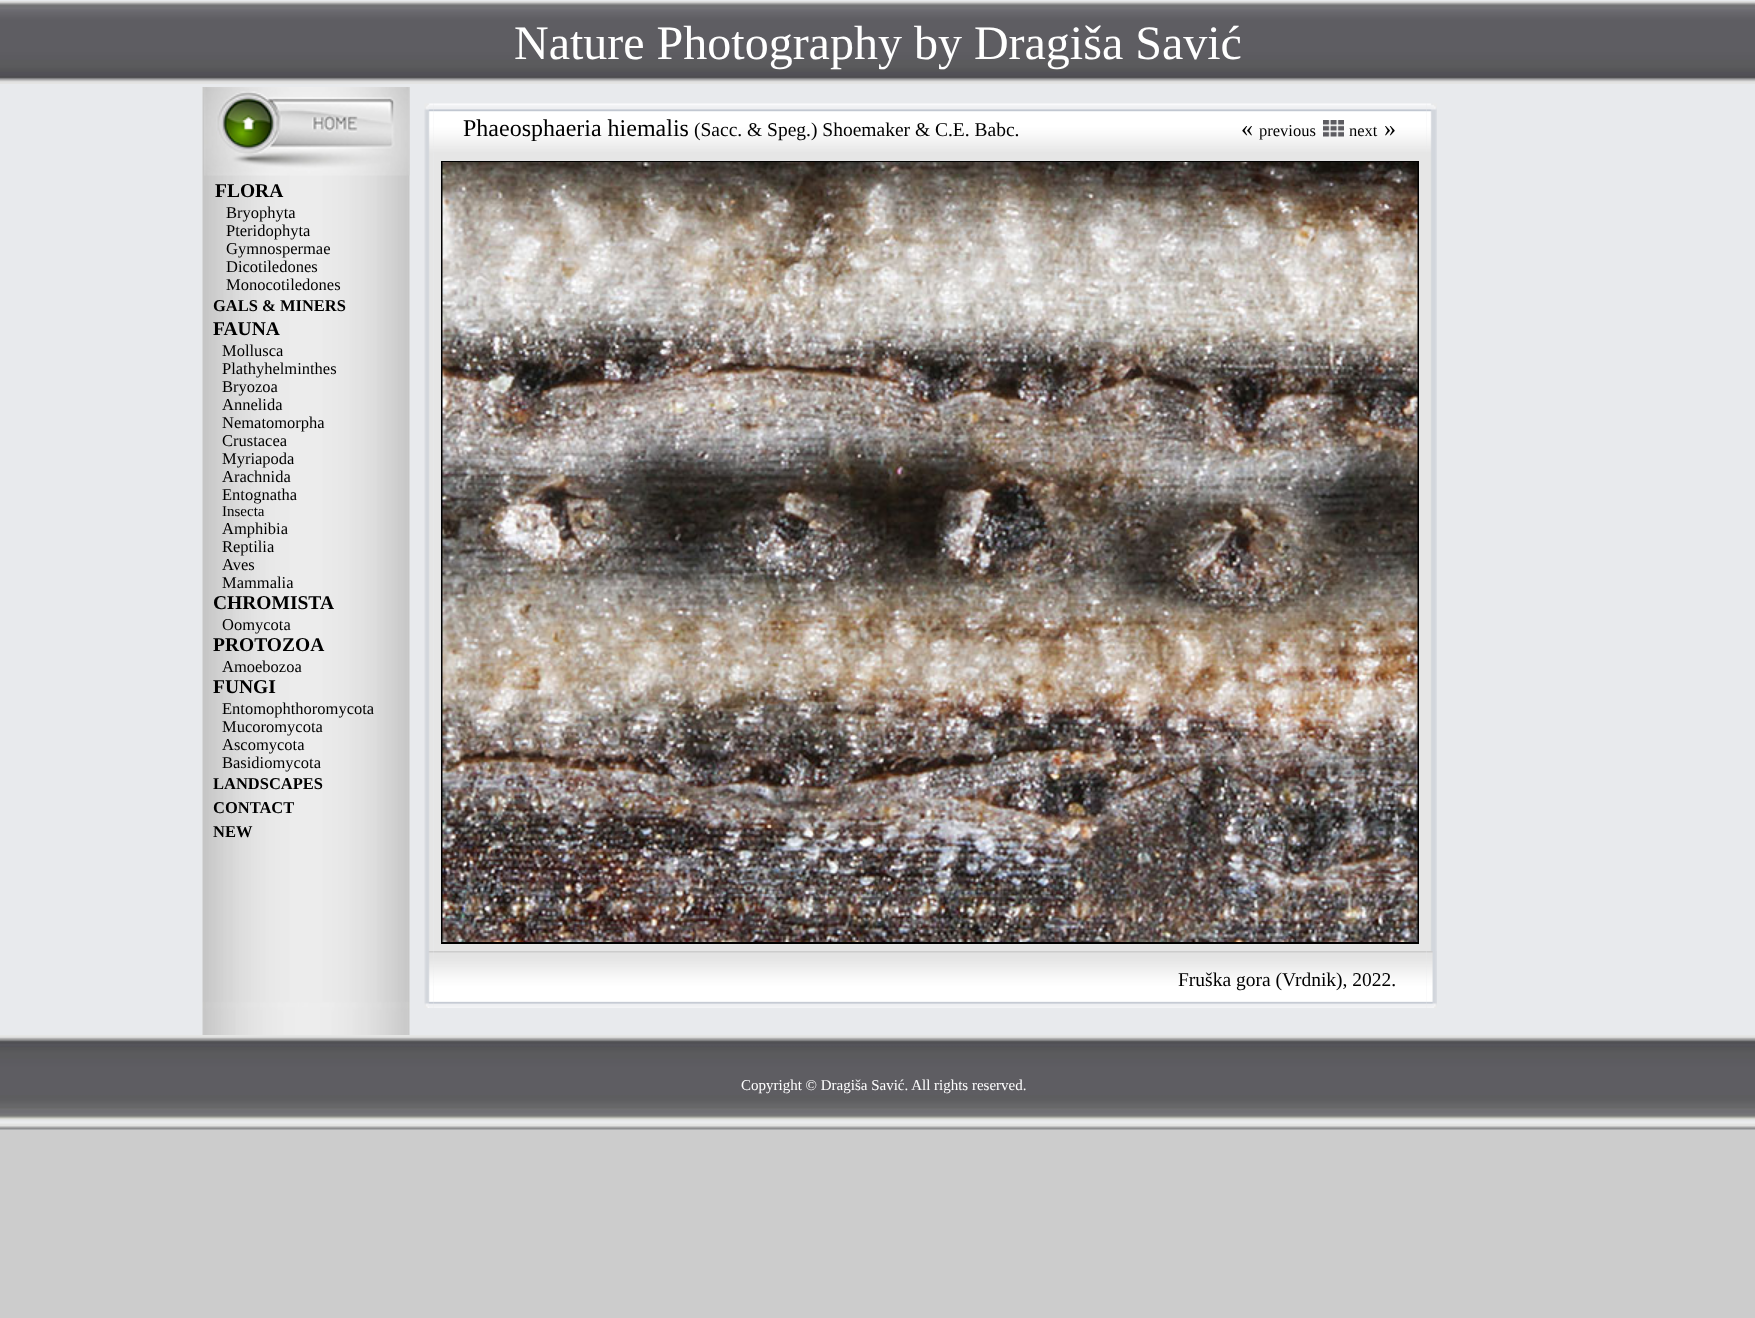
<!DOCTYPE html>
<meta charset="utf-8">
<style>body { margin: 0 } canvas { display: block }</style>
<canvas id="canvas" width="1755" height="1318"></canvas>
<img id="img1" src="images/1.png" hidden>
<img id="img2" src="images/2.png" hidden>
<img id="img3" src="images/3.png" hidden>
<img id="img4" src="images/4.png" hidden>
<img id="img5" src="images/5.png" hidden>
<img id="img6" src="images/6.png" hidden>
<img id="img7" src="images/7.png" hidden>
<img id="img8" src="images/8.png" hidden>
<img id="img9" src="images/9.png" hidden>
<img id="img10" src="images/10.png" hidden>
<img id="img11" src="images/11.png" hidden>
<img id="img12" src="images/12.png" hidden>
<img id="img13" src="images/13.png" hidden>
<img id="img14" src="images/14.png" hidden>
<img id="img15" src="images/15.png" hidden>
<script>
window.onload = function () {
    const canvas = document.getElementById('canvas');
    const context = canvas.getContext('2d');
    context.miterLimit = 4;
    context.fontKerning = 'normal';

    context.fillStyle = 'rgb(204, 204, 204)';
    context.fillRect(0, 0, 1755, 1318);
    context.fillStyle = 'rgb(232, 234, 237)';
    context.fillRect(0, 0, 1755, 1035);
    context.drawImage(document.getElementById('img1'), 0, 1, 1755, 83);
    context.drawImage(document.getElementById('img2'), 202, 87, 208, 948);
    context.drawImage(document.getElementById('img3'), 204, 87, 206, 89);
    context.drawImage(document.getElementById('img4'), 424, 103, 10, 50);
    context.drawImage(document.getElementById('img5'), 433, 103, 779, 50);
    context.drawImage(document.getElementById('img6'), 1212, 103, 215, 50);
    context.drawImage(document.getElementById('img7'), 1323, 120, 21, 17);
    context.drawImage(document.getElementById('img8'), 1426, 103, 11, 50);
    context.drawImage(document.getElementById('img9'), 424, 153, 10, 798);
    context.fillStyle = 'rgb(230, 230, 230)';
    context.fillRect(434, 153, 993, 798);
    context.strokeStyle = 'rgb(0, 0, 0)';
    context.lineWidth = 2;
    context.strokeRect(442, 162, 976, 781);
    context.drawImage(document.getElementById('img10'), 442, 162, 976, 780);
    context.drawImage(document.getElementById('img11'), 1427, 153, 10, 798);
    context.drawImage(document.getElementById('img12'), 424, 951, 10, 57);
    context.drawImage(document.getElementById('img13'), 433, 951, 994, 57);
    context.drawImage(document.getElementById('img14'), 1426, 951, 11, 57);
    context.fillStyle = 'rgb(232, 234, 237)';
    context.fillRect(0, 1129, 1755, 1);
    context.drawImage(document.getElementById('img15'), 0, 1035, 1755, 95);
    context.font = '48px Liberation Serif';
    context.fillStyle = 'rgb(255, 255, 255)';
    context.fillText('Nature Photography by Dragiša Savić', 514, 59);
    context.font = 'bold 19.5px Liberation Serif';
    context.fillStyle = 'rgb(0, 0, 0)';
    context.fillText('FLORA', 215, 197);
    context.font = '16.5px Liberation Serif';
    context.fillText('Bryophyta', 226, 218);
    context.fillText('Pteridophyta', 226, 236);
    context.fillText('Gymnospermae', 226, 254);
    context.fillText('Dicotiledones', 226, 272);
    context.fillText('Monocotiledones', 226, 290);
    context.font = 'bold 16.5px Liberation Serif';
    context.fillText('GALS & MINERS', 213, 311);
    context.font = 'bold 19.5px Liberation Serif';
    context.fillText('FAUNA', 213, 335);
    context.font = '16.5px Liberation Serif';
    context.fillText('Mollusca', 222, 356);
    context.fillText('Plathyhelminthes', 222, 374);
    context.fillText('Bryozoa', 222, 392);
    context.fillText('Annelida', 222, 410);
    context.fillText('Nematomorpha', 222, 428);
    context.fillText('Crustacea', 222, 446);
    context.fillText('Myriapoda', 222, 464);
    context.fillText('Arachnida', 222, 482);
    context.fillText('Entognatha', 222, 500);
    context.font = '15px Liberation Serif';
    context.fillText('Insecta', 222, 516);
    context.font = '16.5px Liberation Serif';
    context.fillText('Amphibia', 222, 534);
    context.fillText('Reptilia', 222, 552);
    context.fillText('Aves', 222, 570);
    context.fillText('Mammalia', 222, 588);
    context.font = 'bold 19.5px Liberation Serif';
    context.fillText('CHROMISTA', 213, 609);
    context.font = '16.5px Liberation Serif';
    context.fillText('Oomycota', 222, 630);
    context.font = 'bold 19.5px Liberation Serif';
    context.fillText('PROTOZOA', 213, 651);
    context.font = '16.5px Liberation Serif';
    context.fillText('Amoebozoa', 222, 672);
    context.font = 'bold 19.5px Liberation Serif';
    context.fillText('FUNGI', 213, 693);
    context.font = '16.5px Liberation Serif';
    context.fillText('Entomophthoromycota', 222, 714);
    context.fillText('Mucoromycota', 222, 732);
    context.fillText('Ascomycota', 222, 750);
    context.fillText('Basidiomycota', 222, 768);
    context.font = 'bold 16.5px Liberation Serif';
    context.fillText('LANDSCAPES', 213, 789);
    context.fillText('CONTACT', 213, 813);
    context.fillText('NEW', 213, 837);
    context.font = '24px Liberation Serif';
    context.fillText('Phaeosphaeria hiemalis', 463, 136);
    context.font = '19.5px Liberation Serif';
    context.fillText('(Sacc. & Speg.) Shoemaker & C.E. Babc.', 694, 136);
    context.font = '24px Liberation Serif';
    context.fillText('«', 1241, 136);
    context.font = '16.5px Liberation Serif';
    context.fillText('previous', 1259, 136);
    context.fillText('next', 1349, 136);
    context.font = '24px Liberation Serif';
    context.fillText('»', 1384, 136);
    context.font = '19.5px Liberation Serif';
    context.fillText('Fruška gora (Vrdnik), 2022.', 1178, 986);
    context.font = '15px Liberation Serif';
    context.fillStyle = 'rgb(255, 255, 255)';
    context.fillText('Copyright © Dragiša Savić. All rights reserved.', 741, 1090);
};
</script>
